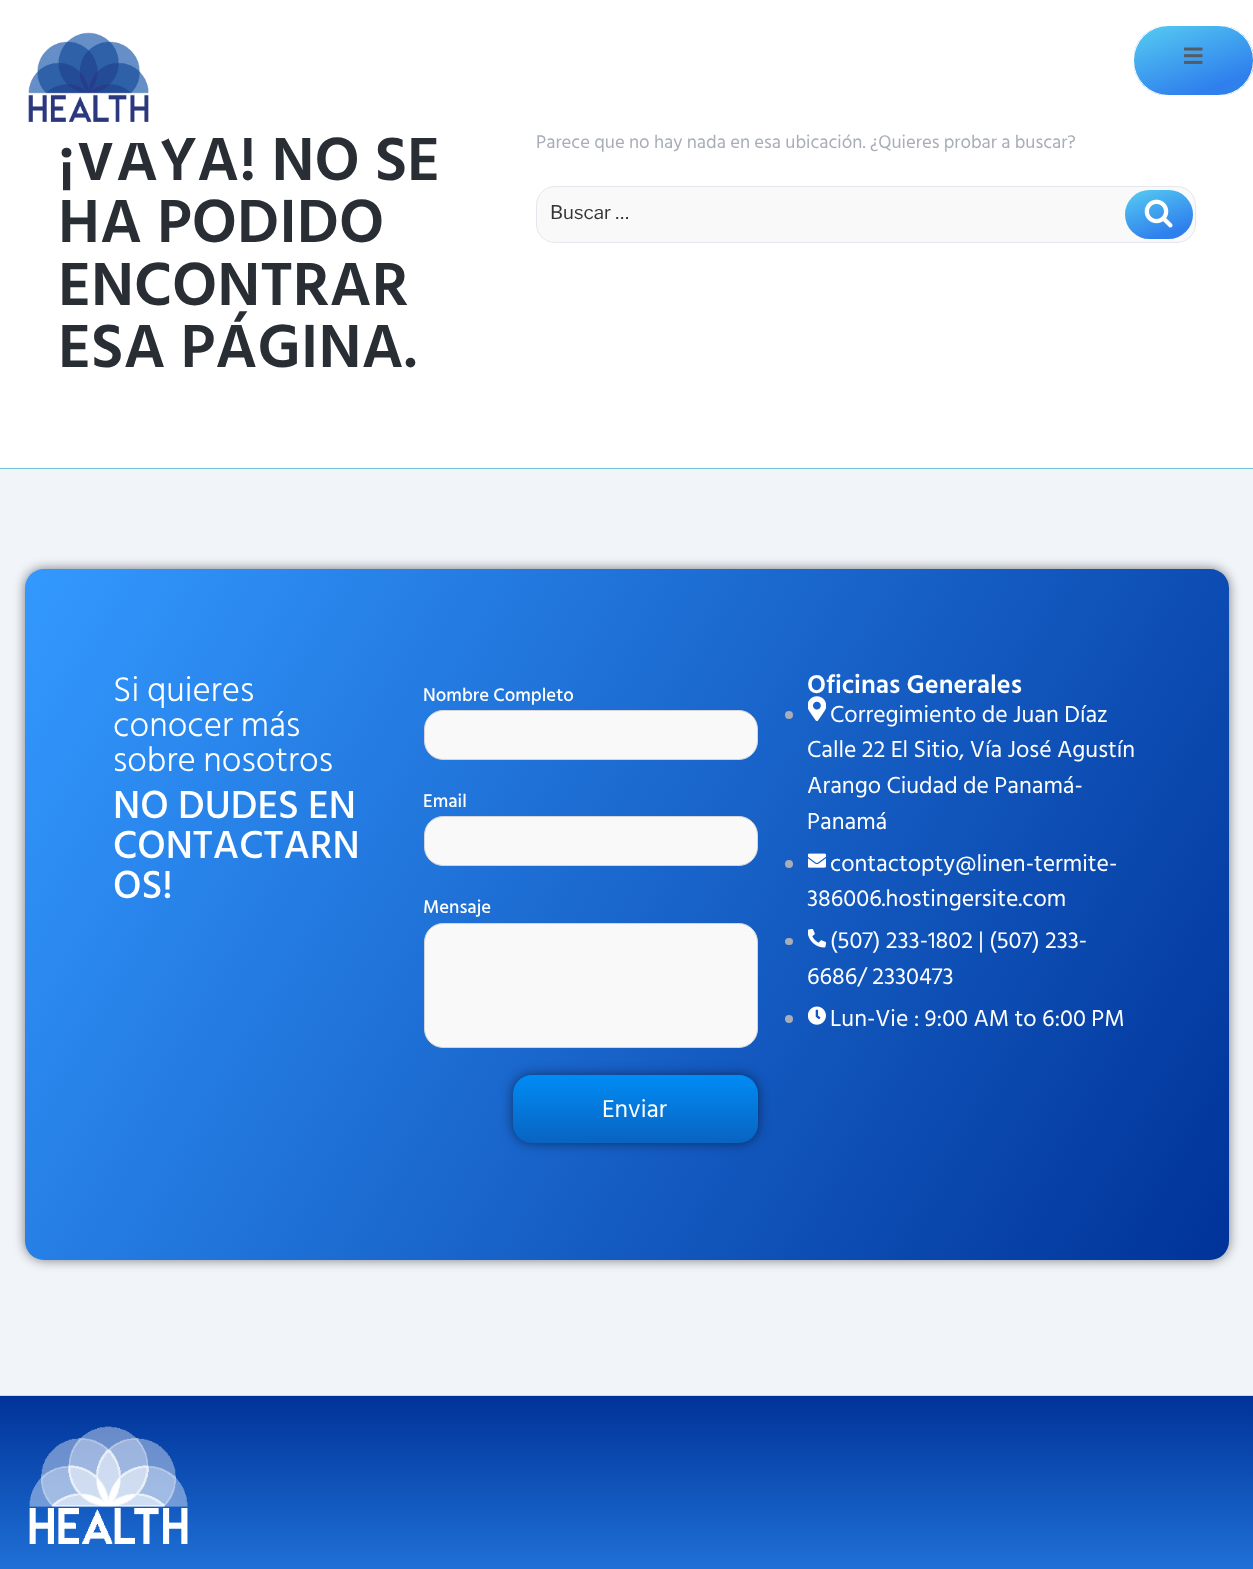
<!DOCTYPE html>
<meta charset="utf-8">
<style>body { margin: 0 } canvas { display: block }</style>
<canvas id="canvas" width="1253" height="1569"></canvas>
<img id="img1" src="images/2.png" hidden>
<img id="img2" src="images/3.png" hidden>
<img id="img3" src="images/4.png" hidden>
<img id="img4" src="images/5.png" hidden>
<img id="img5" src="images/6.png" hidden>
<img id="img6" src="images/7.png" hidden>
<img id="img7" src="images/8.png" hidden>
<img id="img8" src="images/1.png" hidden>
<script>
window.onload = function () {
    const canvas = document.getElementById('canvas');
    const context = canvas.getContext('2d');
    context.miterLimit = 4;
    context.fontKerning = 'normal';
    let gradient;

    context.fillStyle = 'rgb(255, 255, 255)';
    context.fillRect(0, 0, 1253, 1569);
    context.save();
    context.beginPath();
    context.roundRect(1133, 25, 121, 71, 35.5);
    context.clip();
    gradient = context.createLinearGradient(1211, 110, 1175, 11);
    gradient.addColorStop(0.2, 'rgb(47, 128, 237)');
    gradient.addColorStop(1, 'rgb(86, 204, 242)');
    context.fillStyle = gradient;
    context.fillRect(1134, 26, 119, 69);
    context.restore();
    context.beginPath();
    context.roundRect(1133.5, 25.5, 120, 70, 35);
    context.strokeStyle = 'rgb(255, 255, 255)';
    context.stroke();
    context.drawImage(document.getElementById('img1'), 1184, 47, 19, 17);
    context.fillStyle = 'rgb(249, 249, 249)';
    context.beginPath();
    context.roundRect(536.5, 186.5, 659, 56, 18.5);
    context.fill();
    context.strokeStyle = 'rgb(228, 231, 237)';
    context.stroke();
    gradient = context.createLinearGradient(1171, 247, 1147, 182);
    gradient.addColorStop(0.2, 'rgb(47, 128, 237)');
    gradient.addColorStop(1, 'rgb(86, 204, 242)');
    context.fillStyle = gradient;
    context.beginPath();
    context.roundRect(1125, 190, 68, 49, 24.5);
    context.fill();
    context.drawImage(document.getElementById('img2'), 1144, 199, 29, 29);
    context.fillStyle = 'rgb(115, 195, 215)';
    context.fillRect(0, 468, 1253, 1);
    context.fillStyle = 'rgb(241, 245, 250)';
    context.fillRect(0, 469, 1253, 926);
    context.fillStyle = 'rgba(0, 0, 0, 0.5)';
    context.filter = 'blur(6px)';
    context.beginPath();
    context.roundRect(25, 569, 1204, 691, 19);
    context.fill();
    context.filter = 'none';
    gradient = context.createLinearGradient(1228, 1261, 26, 567);
    gradient.addColorStop(0, 'rgb(0, 51, 153)');
    gradient.addColorStop(1, 'rgb(51, 153, 255)');
    context.fillStyle = gradient;
    context.beginPath();
    context.roundRect(25, 569, 1204, 691, 19);
    context.fill();
    context.fillStyle = 'rgb(249, 249, 249)';
    context.beginPath();
    context.roundRect(424.5, 710.5, 333, 49, 18.5);
    context.fill();
    context.strokeStyle = 'rgb(213, 213, 215)';
    context.stroke();
    context.beginPath();
    context.roundRect(424.5, 816.5, 333, 49, 18.5);
    context.fill();
    context.stroke();
    context.beginPath();
    context.roundRect(424.5, 923.5, 333, 124, 18.5);
    context.fill();
    context.stroke();
    context.fillStyle = 'rgba(0, 0, 0, 0.5)';
    context.filter = 'blur(6px)';
    context.beginPath();
    context.roundRect(513, 1075, 245, 68, 19);
    context.fill();
    context.filter = 'none';
    gradient = context.createLinearGradient(635, 1075, 635, 1143);
    gradient.addColorStop(0, 'rgb(0, 140, 245)');
    gradient.addColorStop(1, 'rgb(9, 99, 193)');
    context.fillStyle = gradient;
    context.beginPath();
    context.roundRect(513, 1075, 245, 68, 19);
    context.fill();
    context.fillStyle = 'rgb(168, 173, 184)';
    context.beginPath();
    context.arc(789, 715, 4, 0, 2 * Math.PI);
    context.fill();
    context.drawImage(document.getElementById('img3'), 808, 696, 18, 25);
    context.beginPath();
    context.arc(789, 864, 4, 0, 2 * Math.PI);
    context.fill();
    context.drawImage(document.getElementById('img4'), 808, 853, 18, 15);
    context.beginPath();
    context.roundRect(785, 938, 8, 7, 3.5);
    context.fill();
    context.drawImage(document.getElementById('img5'), 808, 929, 18, 19);
    context.beginPath();
    context.arc(789, 1019, 4, 0, 2 * Math.PI);
    context.fill();
    context.drawImage(document.getElementById('img6'), 808, 1006, 18, 19);
    gradient = context.createLinearGradient(627, 1396, 627, 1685);
    gradient.addColorStop(0, 'rgb(0, 51, 153)');
    gradient.addColorStop(1, 'rgb(51, 153, 255)');
    context.fillStyle = gradient;
    context.fillRect(0, 1396, 1253, 173);
    context.fillStyle = 'rgb(212, 215, 221)';
    context.fillRect(0, 1395, 1253, 1);
    context.drawImage(document.getElementById('img7'), 29, 1426, 159, 118);
    context.font = '600 62.5px Hind Siliguri';
    context.fillStyle = 'rgb(41, 46, 53)';
    context.fillText('¡VAYA! NO SE', 58, 180);
    context.fillStyle = 'rgb(255, 255, 255)';
    context.beginPath();
    context.roundRect(0, 13, 179, 130, 25);
    context.fill();
    context.drawImage(document.getElementById('img8'), 28, 32, 121, 90);
    context.fillStyle = 'rgb(41, 46, 53)';
    context.fillText('HA PODIDO', 58, 242);
    context.fillText('ENCONTRAR', 58, 305);
    context.fillText('ESA PÁGINA.', 58, 367);
    context.font = '18.75px Hind Siliguri';
    context.fillStyle = 'rgb(168, 173, 184)';
    context.fillText('Parece que no hay nada en esa ubicación. ¿Quieres probar a buscar?', 536, 148);
    context.font = '100 18.75px Libre Franklin';
    context.fillStyle = 'rgb(51, 51, 51)';
    context.fillText('Buscar …', 550, 219);
    context.font = '300 35px Hind Siliguri';
    context.fillStyle = 'rgb(254, 255, 255)';
    context.fillText('Si quieres', 113, 701);
    context.fillText('conocer más', 113, 736);
    context.fillText('sobre nosotros', 113, 771);
    context.font = '500 40px Hind Siliguri';
    context.fillText('NO DUDES EN', 113, 818);
    context.fillText('CONTACTARN', 113, 858);
    context.fillText('OS!', 113, 898);
    context.font = '500 18.75px Hind Siliguri';
    context.fillText('Nombre Completo', 423, 701);
    context.fillText('Email', 423, 807);
    context.fillText('Mensaje', 423, 913);
    context.font = '25px Hind Siliguri';
    context.fillText('Enviar', 602, 1117);
    context.font = '600 26.25px Hind Siliguri';
    context.fillText('Oficinas Generales', 807, 693);
    context.font = '23.75px Hind Siliguri';
    context.fillText('Corregimiento de Juan Díaz', 830, 722);
    context.fillText('Calle 22 El Sitio, Vía José Agustín', 807, 757);
    context.fillText('Arango Ciudad de Panamá-', 807, 793);
    context.fillText('Panamá', 807, 829);
    context.fillText('contactopty@linen-termite-', 830, 871);
    context.fillText('386006.hostingersite.com', 807, 906);
    context.fillText('(507) 233-1802 | (507) 233-', 830, 948);
    context.fillText('6686/ 2330473', 807, 984);
    context.fillText('Lun-Vie : 9:00 AM to 6:00 PM', 830, 1026);
};
</script>
